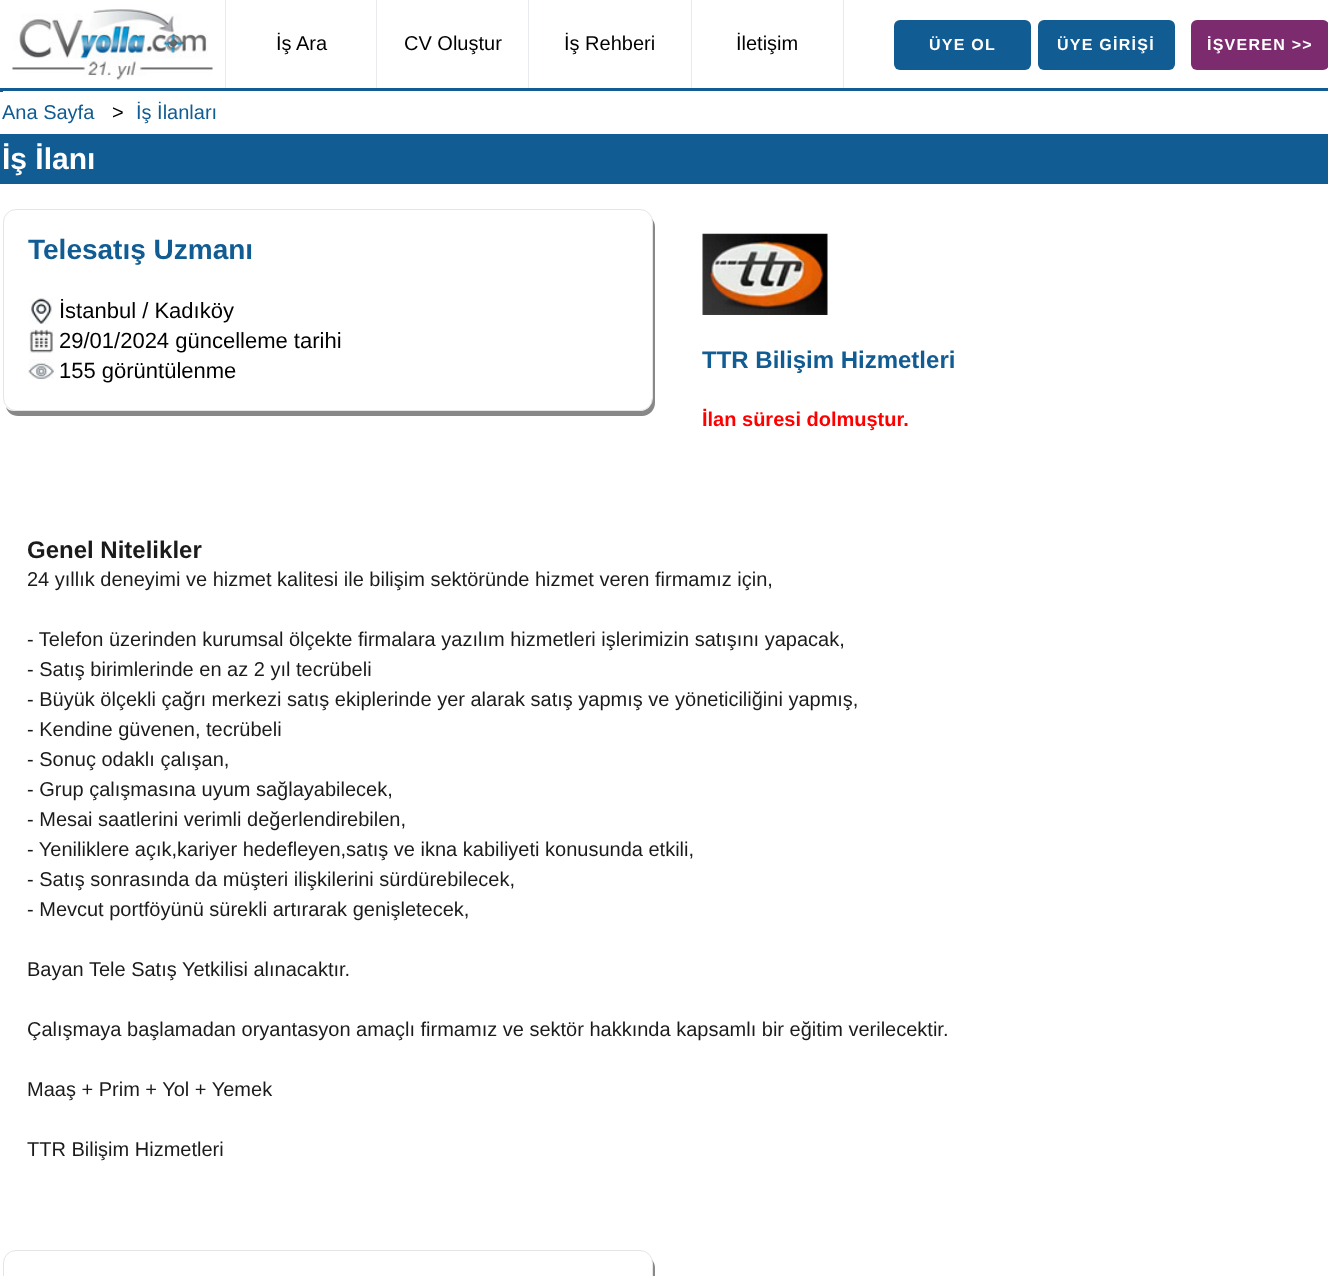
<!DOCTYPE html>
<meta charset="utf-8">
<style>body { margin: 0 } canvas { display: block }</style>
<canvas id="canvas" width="1328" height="1276"></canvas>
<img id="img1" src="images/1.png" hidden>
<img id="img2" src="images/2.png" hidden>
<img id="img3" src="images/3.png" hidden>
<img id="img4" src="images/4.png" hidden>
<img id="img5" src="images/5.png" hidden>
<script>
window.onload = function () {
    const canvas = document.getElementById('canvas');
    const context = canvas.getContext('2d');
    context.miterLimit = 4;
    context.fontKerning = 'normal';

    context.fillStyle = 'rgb(255, 255, 255)';
    context.fillRect(0, 0, 1328, 1276);
    context.drawImage(document.getElementById('img1'), 12, 9, 201, 71);
    context.fillStyle = 'rgb(233, 234, 237)';
    context.fillRect(376, 0, 1, 88);
    context.fillRect(225, 0, 1, 88);
    context.fillRect(528, 0, 1, 88);
    context.fillRect(691, 0, 1, 88);
    context.fillRect(843, 0, 1, 88);
    context.fillStyle = 'rgb(17, 92, 146)';
    context.beginPath();
    context.roundRect(894, 20, 137, 50, 6);
    context.fill();
    context.beginPath();
    context.roundRect(1038, 20, 137, 50, 6);
    context.fill();
    context.fillStyle = 'rgb(124, 44, 110)';
    context.beginPath();
    context.roundRect(1191, 20, 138, 50, 6);
    context.fill();
    context.fillStyle = 'rgb(17, 92, 146)';
    context.fillRect(0, 88, 1328, 4);
    context.fillStyle = 'rgb(255, 255, 255)';
    context.fillRect(3, 91, 1325, 1);
    context.fillStyle = 'rgb(17, 92, 146)';
    context.fillRect(0, 134, 1328, 50);
    context.fillStyle = 'rgb(136, 136, 136)';
    context.beginPath();
    context.moveTo(6, 407);
    context.bezierCurveTo(7, 412, 12, 416, 18, 416);
    context.lineTo(642, 416);
    context.bezierCurveTo(649, 416, 655, 410, 655, 403);
    context.lineTo(655, 227);
    context.bezierCurveTo(655, 224, 654, 221, 652, 219);
    context.lineTo(652, 399);
    context.bezierCurveTo(652, 406, 647, 411, 640, 411);
    context.lineTo(15, 411);
    context.bezierCurveTo(11, 411, 8, 410, 6, 407);
    context.closePath();
    context.fill();
    context.beginPath();
    context.roundRect(3.5, 209.5, 649, 201, 12.5);
    context.strokeStyle = 'rgb(229, 229, 229)';
    context.stroke();
    context.drawImage(document.getElementById('img2'), 29, 298, 24, 26);
    context.drawImage(document.getElementById('img3'), 29, 329, 25, 25);
    context.drawImage(document.getElementById('img4'), 28, 359, 26, 21);
    context.drawImage(document.getElementById('img5'), 702, 233, 126, 82);
    context.beginPath();
    context.moveTo(5, 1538);
    context.bezierCurveTo(7, 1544, 12, 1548, 18, 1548);
    context.lineTo(642, 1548);
    context.bezierCurveTo(649, 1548, 655, 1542, 655, 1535);
    context.lineTo(655, 1268);
    context.bezierCurveTo(655, 1265, 654, 1262, 652, 1260);
    context.lineTo(652, 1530);
    context.bezierCurveTo(652, 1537, 647, 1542, 640, 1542);
    context.lineTo(15, 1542);
    context.bezierCurveTo(11, 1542, 8, 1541, 5, 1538);
    context.closePath();
    context.fill();
    context.beginPath();
    context.roundRect(3.5, 1250.5, 649, 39, 12.5);
    context.stroke();
    context.font = '20px Liberation Sans';
    context.fillStyle = 'rgb(0, 0, 0)';
    context.fillText('İş Ara', 276, 50);
    context.fillText('CV Oluştur', 404, 50);
    context.fillText('İş Rehberi', 564, 50);
    context.fillText('İletişim', 736, 50);
    context.letterSpacing = '1.25px';
    context.font = 'bold 16px Liberation Sans';
    context.fillStyle = 'rgb(255, 255, 255)';
    context.fillText('ÜYE OL', 929, 50);
    context.fillText('ÜYE GİRİŞİ', 1057, 50);
    context.fillText('İŞVEREN >>', 1207, 50);
    context.letterSpacing = '0px';
    context.font = '20px Liberation Sans';
    context.fillStyle = 'rgb(17, 92, 146)';
    context.fillText('Ana Sayfa', 2, 119);
    context.fillStyle = 'rgb(0, 0, 0)';
    context.fillText('>', 112, 119);
    context.fillStyle = 'rgb(17, 92, 146)';
    context.fillText('İş İlanları', 136, 119);
    context.font = 'bold 30px Liberation Sans';
    context.fillStyle = 'rgb(255, 255, 255)';
    context.fillText('İş İlanı', 2, 169);
    context.font = 'bold 28px Liberation Sans';
    context.fillStyle = 'rgb(17, 92, 146)';
    context.fillText('Telesatış Uzmanı', 28, 259);
    context.font = '22px Liberation Sans';
    context.fillStyle = 'rgb(0, 0, 0)';
    context.fillText('İstanbul / Kadıköy', 59, 318);
    context.fillText('29/01/2024 güncelleme tarihi', 59, 348);
    context.fillText('155 görüntülenme', 59, 378);
    context.font = 'bold 24px Liberation Sans';
    context.fillStyle = 'rgb(17, 92, 146)';
    context.fillText('TTR Bilişim Hizmetleri', 702, 368);
    context.font = 'bold 20px Liberation Sans';
    context.fillStyle = 'rgb(255, 0, 0)';
    context.fillText('İlan süresi dolmuştur.', 702, 426);
    context.font = 'bold 24px Liberation Sans';
    context.fillStyle = 'rgb(27, 27, 27)';
    context.fillText('Genel Nitelikler', 27, 558);
    context.font = '20px Liberation Sans';
    context.fillText('24 yıllık deneyimi ve hizmet kalitesi ile bilişim sektöründe hizmet veren firmamız için,', 27, 586);
    context.fillText('- Telefon üzerinden kurumsal ölçekte firmalara yazılım hizmetleri işlerimizin satışını yapacak,', 27, 646);
    context.fillText('- Satış birimlerinde en az 2 yıl tecrübeli', 27, 676);
    context.fillText('- Büyük ölçekli çağrı merkezi satış ekiplerinde yer alarak satış yapmış ve yöneticiliğini yapmış,', 27, 706);
    context.fillText('- Kendine güvenen, tecrübeli', 27, 736);
    context.fillText('- Sonuç odaklı çalışan,', 27, 766);
    context.fillText('- Grup çalışmasına uyum sağlayabilecek,', 27, 796);
    context.fillText('- Mesai saatlerini verimli değerlendirebilen,', 27, 826);
    context.fillText('- Yeniliklere açık,kariyer hedefleyen,satış ve ikna kabiliyeti konusunda etkili,', 27, 856);
    context.fillText('- Satış sonrasında da müşteri ilişkilerini sürdürebilecek,', 27, 886);
    context.fillText('- Mevcut portföyünü sürekli artırarak genişletecek,', 27, 916);
    context.fillText('Bayan Tele Satış Yetkilisi alınacaktır.', 27, 976);
    context.fillText('Çalışmaya başlamadan oryantasyon amaçlı firmamız ve sektör hakkında kapsamlı bir eğitim verilecektir.', 27, 1036);
    context.fillText('Maaş + Prim + Yol + Yemek', 27, 1096);
    context.fillText('TTR Bilişim Hizmetleri', 27, 1156);
};
</script>
